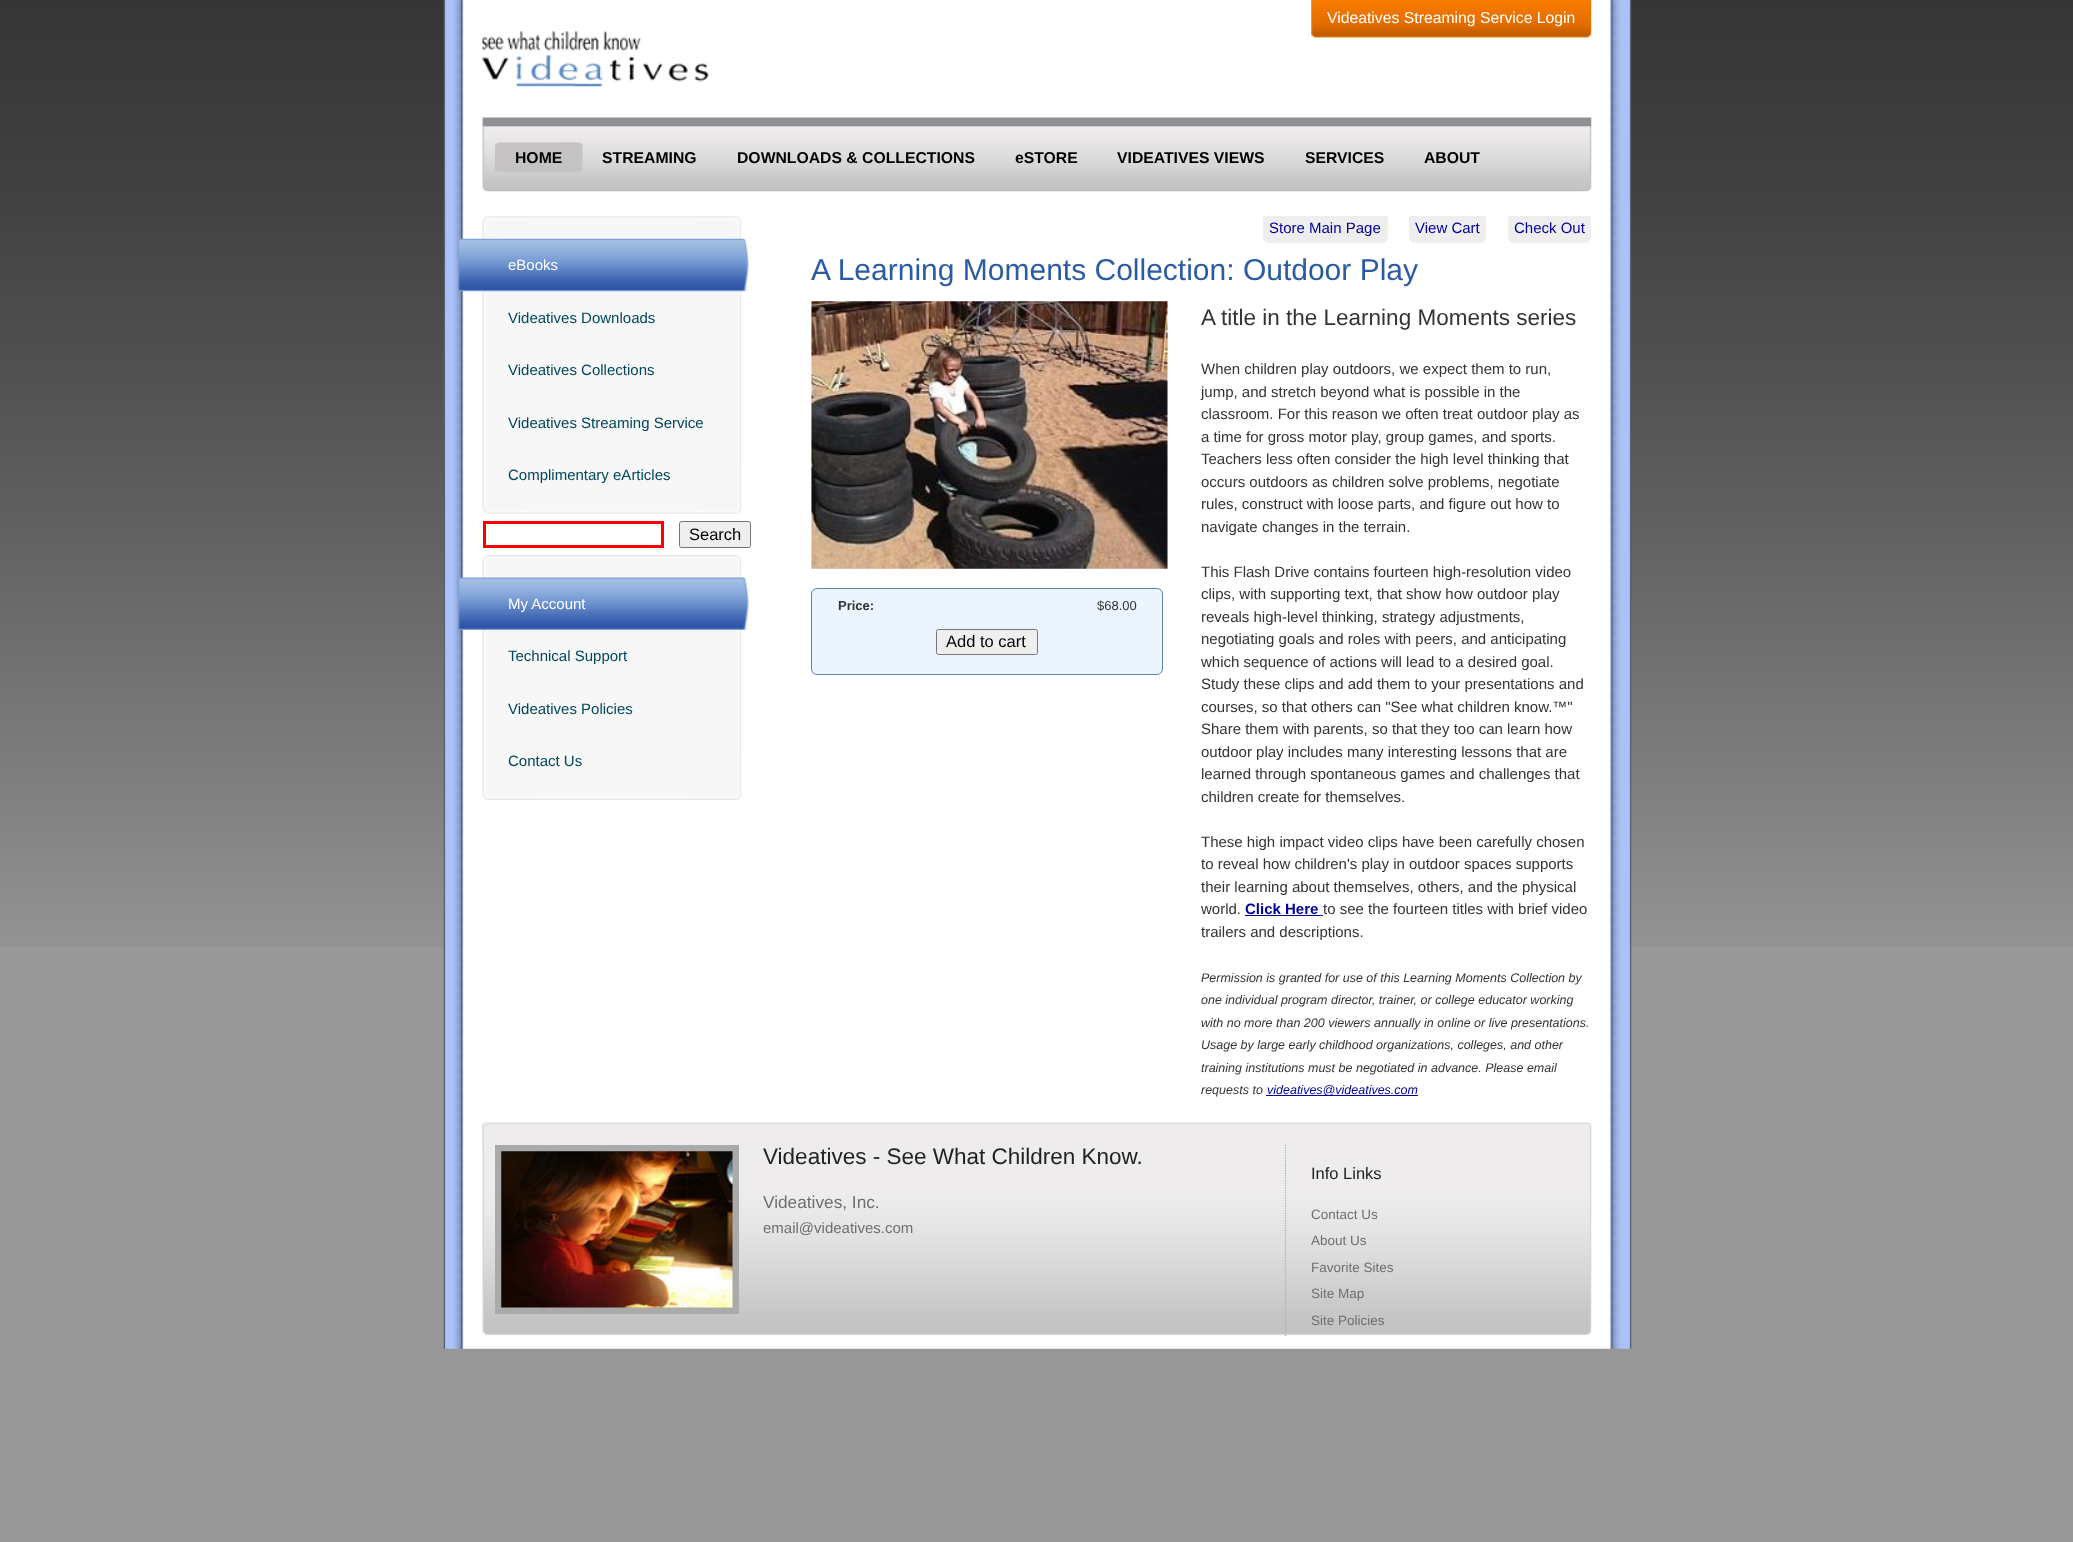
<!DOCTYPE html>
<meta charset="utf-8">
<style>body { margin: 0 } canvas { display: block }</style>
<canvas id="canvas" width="2073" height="1542"></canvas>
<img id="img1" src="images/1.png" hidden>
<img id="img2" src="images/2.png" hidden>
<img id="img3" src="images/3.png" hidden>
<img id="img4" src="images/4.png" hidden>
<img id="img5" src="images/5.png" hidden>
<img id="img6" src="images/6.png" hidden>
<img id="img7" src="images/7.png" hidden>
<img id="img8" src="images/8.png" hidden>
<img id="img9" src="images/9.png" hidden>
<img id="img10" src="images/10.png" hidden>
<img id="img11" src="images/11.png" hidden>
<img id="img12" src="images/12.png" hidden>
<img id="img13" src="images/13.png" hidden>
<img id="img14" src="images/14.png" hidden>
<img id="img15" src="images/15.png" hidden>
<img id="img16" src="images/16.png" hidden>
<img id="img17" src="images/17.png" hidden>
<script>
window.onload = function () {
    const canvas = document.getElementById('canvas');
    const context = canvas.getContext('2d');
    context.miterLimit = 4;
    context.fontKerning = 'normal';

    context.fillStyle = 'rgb(152, 152, 152)';
    context.fillRect(0, 0, 2073, 1542);
    context.drawImage(document.getElementById('img1'), 0, 0, 2073, 947);
    context.drawImage(document.getElementById('img2'), 443, 0, 1189, 1349);
    context.drawImage(document.getElementById('img3'), 1311, 0, 281, 38);
    context.drawImage(document.getElementById('img4'), 482, 31, 227, 56);
    context.drawImage(document.getElementById('img5'), 482, 117, 1110, 75);
    context.drawImage(document.getElementById('img6'), 563, 142, 20, 31);
    context.drawImage(document.getElementById('img7'), 495, 142, 76, 31);
    context.drawImage(document.getElementById('img8'), 482, 216, 260, 23);
    context.drawImage(document.getElementById('img9'), 482, 291, 260, 223);
    context.drawImage(document.getElementById('img10'), 457, 238, 292, 54);
    context.strokeStyle = 'rgb(255, 0, 0)';
    context.lineWidth = 3;
    context.strokeRect(484.5, 522.5, 178, 24);
    context.fillStyle = 'rgb(239, 239, 239)';
    context.beginPath();
    context.roundRect(679.5, 521.5, 71, 26, 2);
    context.fill();
    context.strokeStyle = 'rgb(118, 118, 118)';
    context.lineWidth = 1;
    context.stroke();
    context.drawImage(document.getElementById('img11'), 482, 555, 260, 23);
    context.drawImage(document.getElementById('img12'), 482, 630, 260, 170);
    context.drawImage(document.getElementById('img13'), 457, 577, 292, 53);
    context.save();
    context.beginPath();
    context.rect(811, 216, 780, 907);
    context.clip();
    context.fillStyle = 'rgb(238, 238, 238)';
    context.beginPath();
    context.roundRect(1263, 213, 125, 30, 6);
    context.fill();
    context.beginPath();
    context.roundRect(1409, 213, 77, 30, 6);
    context.fill();
    context.beginPath();
    context.roundRect(1508, 213, 83, 30, 6);
    context.fill();
    context.restore();
    context.drawImage(document.getElementById('img14'), 811, 301, 357, 268);
    context.fillStyle = 'rgb(236, 245, 255)';
    context.beginPath();
    context.roundRect(811.5, 588.5, 351, 86, 5.5);
    context.fill();
    context.strokeStyle = 'rgb(90, 134, 180)';
    context.stroke();
    context.fillStyle = 'rgb(239, 239, 239)';
    context.beginPath();
    context.roundRect(936.5, 629.5, 101, 25, 2);
    context.fill();
    context.strokeStyle = 'rgb(118, 118, 118)';
    context.stroke();
    context.fillStyle = 'rgb(0, 0, 153)';
    context.fillRect(1245, 915, 78, 1);
    context.fillRect(1266, 1095, 152, 1);
    context.drawImage(document.getElementById('img15'), 482, 1122, 1110, 214);
    context.drawImage(document.getElementById('img16'), 482, 1122, 1109, 23);
    context.fillStyle = 'rgb(170, 170, 170)';
    context.fillRect(495, 1145, 244, 169);
    context.drawImage(document.getElementById('img17'), 501, 1151, 232, 157);
    context.beginPath();
    context.moveTo(1285.5, 1145);
    context.lineTo(1285.5, 1336);
    context.strokeStyle = 'rgb(170, 170, 170)';
    context.lineWidth = 1.2;
    context.setLineDash([1.25, 1.25]);
    context.stroke();
    context.font = '15.75px Liberation Sans';
    context.fillStyle = 'rgb(255, 255, 255)';
    context.fillText('Videatives Streaming Service Login', 1327, 23);
    context.font = 'bold 15.75px Liberation Sans';
    context.fillStyle = 'rgb(0, 0, 0)';
    context.fillText('HOME', 515, 163);
    context.fillText('STREAMING', 602, 163);
    context.fillText('DOWNLOADS & COLLECTIONS', 737, 163);
    context.fillText('eSTORE', 1015, 163);
    context.fillText('VIDEATIVES VIEWS', 1117, 163);
    context.fillText('SERVICES', 1305, 163);
    context.fillText('ABOUT', 1424, 163);
    context.font = '15px Liberation Sans';
    context.fillStyle = 'rgb(255, 255, 255)';
    context.fillText('eBooks', 508, 270);
    context.fillStyle = 'rgb(1, 71, 91)';
    context.fillText('Videatives Downloads', 508, 323);
    context.fillText('Videatives Collections', 508, 375);
    context.fillText('Videatives Streaming Service', 508, 428);
    context.fillText('Complimentary eArticles', 508, 480);
    context.font = '16.5px Liberation Sans';
    context.fillStyle = 'rgb(0, 0, 0)';
    context.fillText('Search', 689, 540);
    context.font = '15px Liberation Sans';
    context.fillStyle = 'rgb(255, 255, 255)';
    context.fillText('My Account', 508, 609);
    context.fillStyle = 'rgb(1, 71, 91)';
    context.fillText('Technical Support', 508, 661);
    context.fillText('Videatives Policies', 508, 714);
    context.fillText('Contact Us', 508, 766);
    context.fillStyle = 'rgb(0, 0, 153)';
    context.fillText('Store Main Page', 1269, 233);
    context.fillText('View Cart', 1415, 233);
    context.fillText('Check Out', 1514, 233);
    context.font = '30px Liberation Sans';
    context.fillStyle = 'rgb(43, 92, 163)';
    context.fillText('A Learning Moments Collection: Outdoor Play', 811, 280);
    context.font = 'bold 13px Liberation Sans';
    context.fillStyle = 'rgb(51, 51, 51)';
    context.fillText('Price:', 838, 610);
    context.font = '13px Liberation Sans';
    context.fillText('$68.00', 1097, 610);
    context.font = '16.5px Liberation Sans';
    context.fillStyle = 'rgb(0, 0, 0)';
    context.fillText('Add to cart', 946, 647);
    context.font = '22.5px Liberation Sans';
    context.fillStyle = 'rgb(51, 51, 51)';
    context.fillText('A title in the Learning Moments series', 1201, 325);
    context.font = '15px Liberation Sans';
    context.fillText('When children play outdoors, we expect them to run,', 1201, 374);
    context.fillText('jump, and stretch beyond what is possible in the', 1201, 397);
    context.fillText('classroom. For this reason we often treat outdoor play as', 1201, 419);
    context.fillText('a time for gross motor play, group games, and sports.', 1201, 442);
    context.fillText('Teachers less often consider the high level thinking that', 1201, 464);
    context.fillText('occurs outdoors as children solve problems, negotiate', 1201, 487);
    context.fillText('rules, construct with loose parts, and figure out how to', 1201, 509);
    context.fillText('navigate changes in the terrain.', 1201, 532);
    context.fillText('This Flash Drive contains fourteen high-resolution video', 1201, 577);
    context.fillText('clips, with supporting text, that show how outdoor play', 1201, 599);
    context.fillText('reveals high-level thinking, strategy adjustments,', 1201, 622);
    context.fillText('negotiating goals and roles with peers, and anticipating', 1201, 644);
    context.fillText('which sequence of actions will lead to a desired goal.', 1201, 667);
    context.fillText('Study these clips and add them to your presentations and', 1201, 689);
    context.fillText('courses, so that others can "See what children know.™"', 1201, 712);
    context.fillText('Share them with parents, so that they too can learn how', 1201, 734);
    context.fillText('outdoor play includes many interesting lessons that are', 1201, 757);
    context.fillText('learned through spontaneous games and challenges that', 1201, 779);
    context.fillText('children create for themselves.', 1201, 802);
    context.fillText('These high impact video clips have been carefully chosen', 1201, 847);
    context.fillText('to reveal how children\'s play in outdoor spaces supports', 1201, 869);
    context.fillText('their learning about themselves, others, and the physical', 1201, 892);
    context.fillText('world.', 1201, 914);
    context.font = 'bold 15px Liberation Sans';
    context.fillStyle = 'rgb(0, 0, 153)';
    context.fillText('Click Here', 1245, 914);
    context.font = '15px Liberation Sans';
    context.fillStyle = 'rgb(51, 51, 51)';
    context.fillText('to see the fourteen titles with brief video', 1323, 914);
    context.fillText('trailers and descriptions.', 1201, 937);
    context.font = 'italic 12.5px Liberation Sans';
    context.fillText('Permission is granted for use of this Learning Moments Collection by', 1201, 982);
    context.fillText('one individual program director, trainer, or college educator working', 1201, 1004);
    context.fillText('with no more than 200 viewers annually in online or live presentations.', 1201, 1027);
    context.fillText('Usage by large early childhood organizations, colleges, and other', 1201, 1049);
    context.fillText('training institutions must be negotiated in advance. Please email', 1201, 1072);
    context.fillText('requests to', 1201, 1094);
    context.fillStyle = 'rgb(0, 0, 153)';
    context.fillText('videatives@videatives.com', 1267, 1094);
    context.font = '22.5px Liberation Sans';
    context.fillStyle = 'rgb(34, 34, 34)';
    context.fillText('Videatives - See What Children Know.', 763, 1164);
    context.font = '17.25px Liberation Sans';
    context.fillStyle = 'rgb(111, 111, 111)';
    context.fillText('Videatives, Inc.', 763, 1208);
    context.font = '15px Liberation Sans';
    context.fillText('email@videatives.com', 763, 1233);
    context.font = '16.5px Liberation Sans';
    context.fillStyle = 'rgb(34, 34, 34)';
    context.fillText('Info Links', 1311, 1179);
    context.font = '13.5px Liberation Sans';
    context.fillStyle = 'rgb(111, 111, 111)';
    context.fillText('Contact Us', 1311, 1219);
    context.fillText('About Us', 1311, 1245);
    context.fillText('Favorite Sites', 1311, 1272);
    context.fillText('Site Map', 1311, 1298);
    context.fillText('Site Policies', 1311, 1325);
};
</script>
